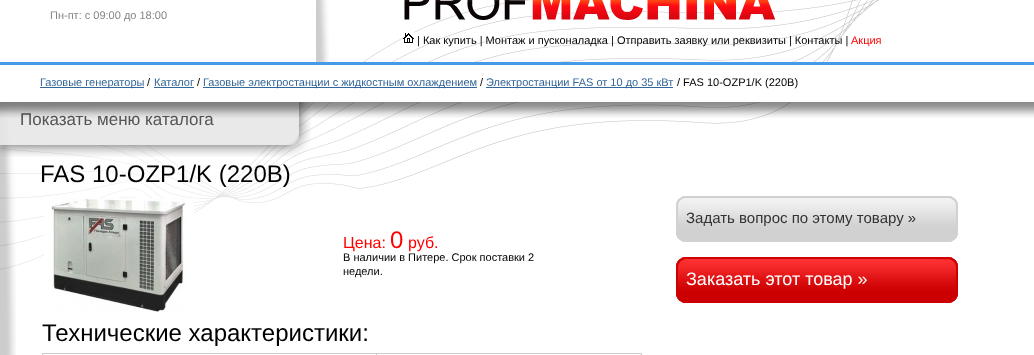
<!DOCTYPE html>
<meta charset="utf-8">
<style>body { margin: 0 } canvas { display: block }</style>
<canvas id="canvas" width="1034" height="355"></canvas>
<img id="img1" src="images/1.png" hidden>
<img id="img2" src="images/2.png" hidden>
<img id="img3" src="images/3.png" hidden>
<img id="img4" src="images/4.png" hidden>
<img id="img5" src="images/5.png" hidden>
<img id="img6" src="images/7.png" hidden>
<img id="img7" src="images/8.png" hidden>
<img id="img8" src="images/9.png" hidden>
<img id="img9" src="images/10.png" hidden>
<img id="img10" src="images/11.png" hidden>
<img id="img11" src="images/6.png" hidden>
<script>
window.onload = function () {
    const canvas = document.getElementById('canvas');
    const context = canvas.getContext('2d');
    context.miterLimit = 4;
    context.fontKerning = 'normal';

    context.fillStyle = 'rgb(255, 255, 255)';
    context.fillRect(0, 0, 1034, 355);
    context.drawImage(document.getElementById('img1'), 0, 0, 879, 270);
    context.drawImage(document.getElementById('img2'), 316, 0, 13, 62);
    context.drawImage(document.getElementById('img3'), 404, 0, 371, 20);
    context.drawImage(document.getElementById('img4'), 403, 32, 11, 11);
    context.drawImage(document.getElementById('img5'), 0, 102, 16, 253);
    context.fillRect(1, 65, 824, 29);
    context.fillStyle = 'rgb(70, 155, 232)';
    context.fillRect(0, 62, 1034, 3);
    context.fillStyle = 'rgb(51, 102, 153)';
    context.fillRect(40, 87, 104, 1);
    context.fillRect(154, 87, 40, 1);
    context.fillRect(203, 87, 274, 1);
    context.fillRect(486, 87, 187, 1);
    context.drawImage(document.getElementById('img6'), 0, 102, 311, 25);
    context.drawImage(document.getElementById('img7'), 0, 127, 311, 30);
    context.drawImage(document.getElementById('img8'), 44, 198, 150, 114);
    context.fillStyle = 'rgb(204, 204, 204)';
    context.fillRect(42, 353, 600, 1);
    context.fillRect(641, 353, 1, 2);
    context.fillRect(42, 353, 1, 2);
    context.fillRect(376, 353, 1, 2);
    context.drawImage(document.getElementById('img9'), 676, 196, 282, 46);
    context.drawImage(document.getElementById('img10'), 676, 257, 282, 46);
    context.font = '11px Liberation Sans';
    context.fillStyle = 'rgb(132, 132, 132)';
    context.fillText('Пн-пт: с 09:00 до 18:00', 50, 19);
    context.fillStyle = 'rgb(0, 0, 0)';
    context.fillText('| Как купить | Монтаж и пусконаладка | Отправить заявку или реквизиты | Контакты |', 417, 44);
    context.fillStyle = 'rgb(255, 0, 0)';
    context.fillText('Акция', 851, 44);
    context.fillStyle = 'rgb(51, 102, 153)';
    context.fillText('Газовые генераторы', 40, 86);
    context.fillStyle = 'rgb(0, 0, 0)';
    context.fillText('/', 147, 86);
    context.fillStyle = 'rgb(51, 102, 153)';
    context.fillText('Каталог', 154, 86);
    context.fillStyle = 'rgb(0, 0, 0)';
    context.fillText('/', 197, 86);
    context.fillStyle = 'rgb(51, 102, 153)';
    context.fillText('Газовые электростанции с жидкостным охлаждением', 203, 86);
    context.fillStyle = 'rgb(0, 0, 0)';
    context.fillText('/', 480, 86);
    context.fillStyle = 'rgb(51, 102, 153)';
    context.fillText('Электростанции FAS от 10 до 35 кВт', 486, 86);
    context.fillStyle = 'rgb(0, 0, 0)';
    context.fillText('/ FAS 10-OZP1/K (220В)', 677, 86);
    context.font = '17px Liberation Sans';
    context.fillStyle = 'rgb(85, 85, 85)';
    context.fillText('Показать меню каталога', 20, 125);
    context.drawImage(document.getElementById('img11'), 0, 94, 1034, 24);
    context.font = '24px Liberation Sans';
    context.fillStyle = 'rgb(0, 0, 0)';
    context.fillText('FAS 10-OZP1/K (220В)', 40, 182);
    context.font = '16px Liberation Sans';
    context.fillStyle = 'rgb(255, 0, 0)';
    context.fillText('Цена:', 343, 248);
    context.font = '24px Liberation Sans';
    context.fillText('0', 390, 248);
    context.font = '16px Liberation Sans';
    context.fillText('руб.', 408, 248);
    context.font = '11px Liberation Sans';
    context.fillStyle = 'rgb(0, 0, 0)';
    context.fillText('В наличии в Питере. Срок поставки 2', 343, 261);
    context.fillText('недели.', 343, 275);
    context.font = '24px Liberation Sans';
    context.fillText('Технические характеристики:', 42, 341);
    context.font = '15px Liberation Sans';
    context.fillStyle = 'rgb(51, 51, 51)';
    context.fillText('Задать вопрос по этому товару »', 686, 223);
    context.font = '18px Liberation Sans';
    context.fillStyle = 'rgb(255, 255, 255)';
    context.fillText('Заказать этот товар »', 686, 285);
};
</script>
